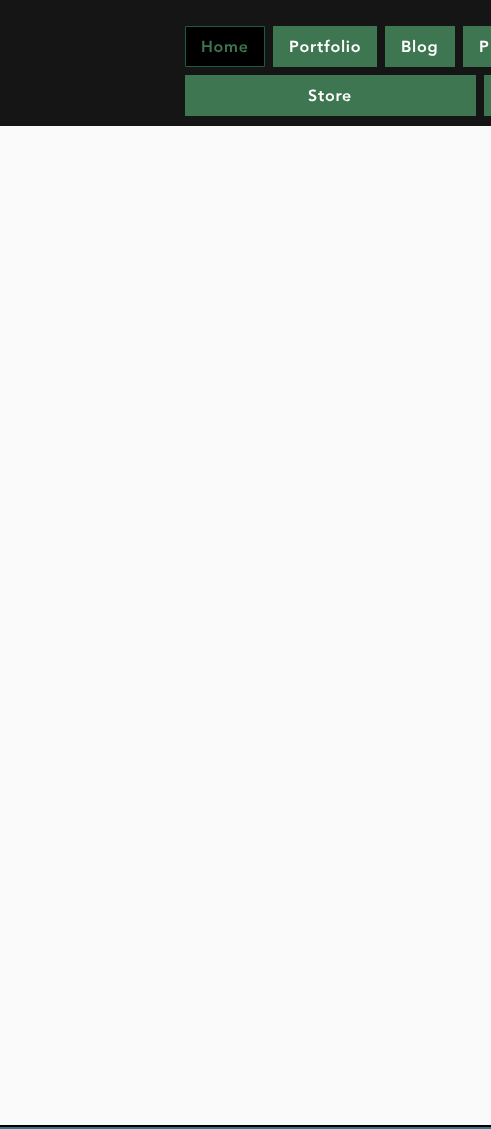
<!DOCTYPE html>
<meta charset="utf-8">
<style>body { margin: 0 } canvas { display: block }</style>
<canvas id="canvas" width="491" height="1129"></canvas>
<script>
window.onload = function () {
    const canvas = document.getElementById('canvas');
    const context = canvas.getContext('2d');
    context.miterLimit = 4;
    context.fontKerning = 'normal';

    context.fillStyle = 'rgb(0, 0, 0)';
    context.fillRect(0, 0, 491, 1129);
    context.fillStyle = 'rgb(21, 21, 21)';
    context.fillRect(0, 0, 491, 126);
    context.fillStyle = 'rgb(0, 0, 0)';
    context.beginPath();
    context.rect(185.5, 26.5, 79, 40);
    context.fill();
    context.strokeStyle = 'rgb(27, 91, 63)';
    context.stroke();
    context.fillStyle = 'rgb(63, 118, 82)';
    context.fillRect(273, 26, 104, 41);
    context.fillRect(385, 26, 70, 41);
    context.fillRect(463, 26, 28, 41);
    context.fillRect(185, 75, 291, 41);
    context.fillRect(484, 75, 7, 41);
    context.fillStyle = 'rgb(250, 250, 250)';
    context.fillRect(0, 126, 491, 999);
    context.fillStyle = 'rgb(48, 117, 143)';
    context.fillRect(0, 1127, 491, 2);
    context.letterSpacing = '0.75px';
    context.font = '900 16px "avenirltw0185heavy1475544"';
    context.fillStyle = 'rgb(63, 118, 82)';
    context.fillText('Home', 201, 52);
    context.fillStyle = 'rgb(255, 255, 255)';
    context.fillText('Portfolio', 289, 52);
    context.fillText('Blog', 401, 52);
    context.fillText('P', 479, 52);
    context.fillText('Store', 308, 101);
};
</script>
